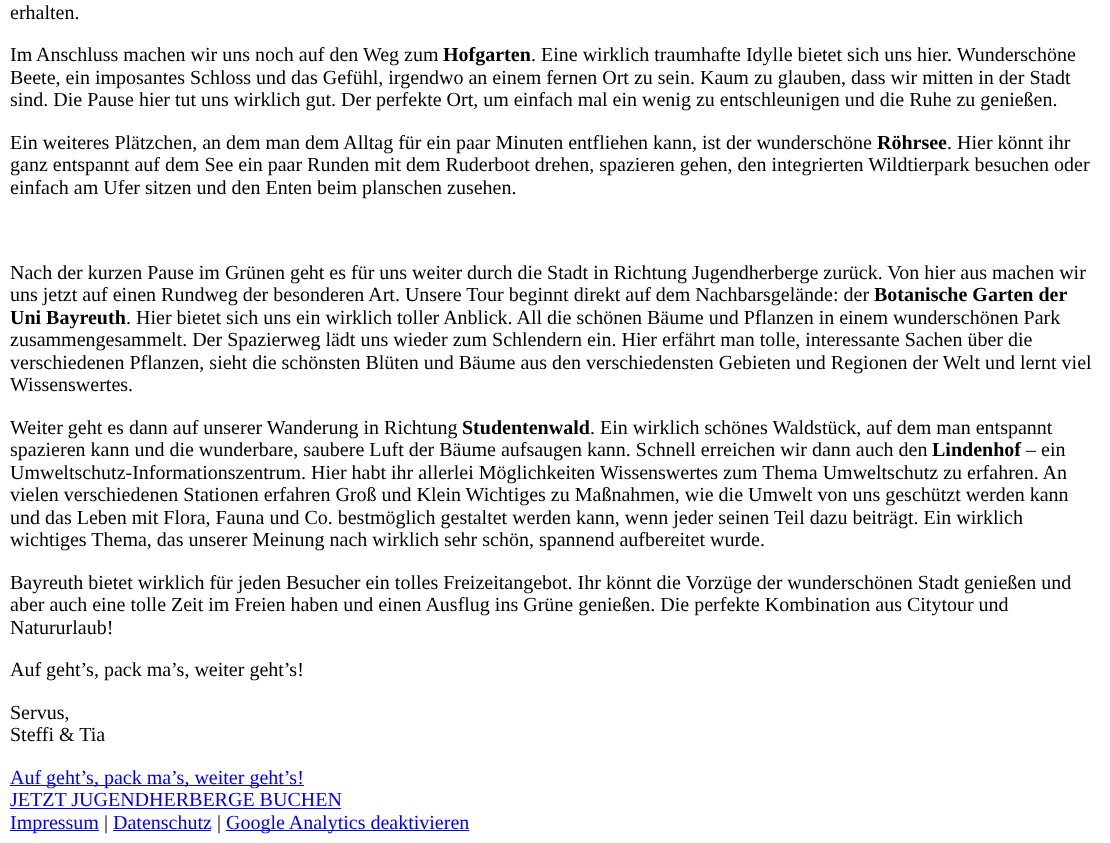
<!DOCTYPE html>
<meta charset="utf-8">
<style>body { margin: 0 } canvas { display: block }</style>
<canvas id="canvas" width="1110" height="843"></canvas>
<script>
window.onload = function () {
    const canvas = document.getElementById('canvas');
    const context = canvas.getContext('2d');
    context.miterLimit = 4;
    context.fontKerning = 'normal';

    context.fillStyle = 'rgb(255, 255, 255)';
    context.fillRect(0, 0, 1110, 843);
    context.fillStyle = 'rgb(0, 0, 238)';
    context.fillRect(10, 785, 294, 1);
    context.fillRect(10, 808, 331, 1);
    context.fillRect(10, 830, 89, 1);
    context.fillRect(113, 830, 98, 1);
    context.fillRect(226, 830, 243, 1);
    context.font = '20px Liberation Serif';
    context.fillStyle = 'rgb(0, 0, 0)';
    context.fillText('erhalten.', 10, 19);
    context.fillText('Im Anschluss machen wir uns noch auf den Weg zum', 10, 61);
    context.font = 'bold 20px Liberation Serif';
    context.fillText('Hofgarten', 443, 61);
    context.font = '20px Liberation Serif';
    context.fillText('. Eine wirklich traumhafte Idylle bietet sich uns hier. Wunderschöne', 531, 61);
    context.fillText('Beete, ein imposantes Schloss und das Gefühl, irgendwo an einem fernen Ort zu sein. Kaum zu glauben, dass wir mitten in der Stadt', 10, 84);
    context.fillText('sind. Die Pause hier tut uns wirklich gut. Der perfekte Ort, um einfach mal ein wenig zu entschleunigen und die Ruhe zu genießen.', 10, 106);
    context.fillText('Ein weiteres Plätzchen, an dem man dem Alltag für ein paar Minuten entfliehen kann, ist der wunderschöne', 10, 149);
    context.font = 'bold 20px Liberation Serif';
    context.fillText('Röhrsee', 877, 149);
    context.font = '20px Liberation Serif';
    context.fillText('. Hier könnt ihr', 947, 149);
    context.fillText('ganz entspannt auf dem See ein paar Runden mit dem Ruderboot drehen, spazieren gehen, den integrierten Wildtierpark besuchen oder', 10, 171);
    context.fillText('einfach am Ufer sitzen und den Enten beim planschen zusehen.', 10, 194);
    context.fillText('Nach der kurzen Pause im Grünen geht es für uns weiter durch die Stadt in Richtung Jugendherberge zurück. Von hier aus machen wir', 10, 279);
    context.fillText('uns jetzt auf einen Rundweg der besonderen Art. Unsere Tour beginnt direkt auf dem Nachbarsgelände: der', 10, 301);
    context.font = 'bold 20px Liberation Serif';
    context.fillText('Botanische Garten der', 874, 301);
    context.fillText('Uni Bayreuth', 10, 324);
    context.font = '20px Liberation Serif';
    context.fillText('. Hier bietet sich uns ein wirklich toller Anblick. All die schönen Bäume und Pflanzen in einem wunderschönen Park', 126, 324);
    context.fillText('zusammengesammelt. Der Spazierweg lädt uns wieder zum Schlendern ein. Hier erfährt man tolle, interessante Sachen über die', 10, 346);
    context.fillText('verschiedenen Pflanzen, sieht die schönsten Blüten und Bäume aus den verschiedensten Gebieten und Regionen der Welt und lernt viel', 10, 369);
    context.fillText('Wissenswertes.', 10, 391);
    context.fillText('Weiter geht es dann auf unserer Wanderung in Richtung', 10, 434);
    context.font = 'bold 20px Liberation Serif';
    context.fillText('Studentenwald', 462, 434);
    context.font = '20px Liberation Serif';
    context.fillText('. Ein wirklich schönes Waldstück, auf dem man entspannt', 590, 434);
    context.fillText('spazieren kann und die wunderbare, saubere Luft der Bäume aufsaugen kann. Schnell erreichen wir dann auch den', 10, 456);
    context.font = 'bold 20px Liberation Serif';
    context.fillText('Lindenhof', 932, 456);
    context.font = '20px Liberation Serif';
    context.fillText('– ein', 1026, 456);
    context.fillText('Umweltschutz-Informationszentrum. Hier habt ihr allerlei Möglichkeiten Wissenswertes zum Thema Umweltschutz zu erfahren. An', 10, 479);
    context.fillText('vielen verschiedenen Stationen erfahren Groß und Klein Wichtiges zu Maßnahmen, wie die Umwelt von uns geschützt werden kann', 10, 501);
    context.fillText('und das Leben mit Flora, Fauna und Co. bestmöglich gestaltet werden kann, wenn jeder seinen Teil dazu beiträgt. Ein wirklich', 10, 524);
    context.fillText('wichtiges Thema, das unserer Meinung nach wirklich sehr schön, spannend aufbereitet wurde.', 10, 546);
    context.fillText('Bayreuth bietet wirklich für jeden Besucher ein tolles Freizeitangebot. Ihr könnt die Vorzüge der wunderschönen Stadt genießen und', 10, 589);
    context.fillText('aber auch eine tolle Zeit im Freien haben und einen Ausflug ins Grüne genießen. Die perfekte Kombination aus Citytour und', 10, 611);
    context.fillText('Natururlaub!', 10, 634);
    context.fillText('Auf geht’s, pack ma’s, weiter geht’s!', 10, 676);
    context.fillText('Servus,', 10, 719);
    context.fillText('Steffi & Tia', 10, 741);
    context.fillStyle = 'rgb(0, 0, 238)';
    context.fillText('Auf geht’s, pack ma’s, weiter geht’s!', 10, 784);
    context.fillText('JETZT JUGENDHERBERGE BUCHEN', 10, 806);
    context.fillText('Impressum', 10, 829);
    context.fillStyle = 'rgb(0, 0, 0)';
    context.fillText('|', 104, 829);
    context.fillStyle = 'rgb(0, 0, 238)';
    context.fillText('Datenschutz', 113, 829);
    context.fillStyle = 'rgb(0, 0, 0)';
    context.fillText('|', 217, 829);
    context.fillStyle = 'rgb(0, 0, 238)';
    context.fillText('Google Analytics deaktivieren', 226, 829);
};
</script>
